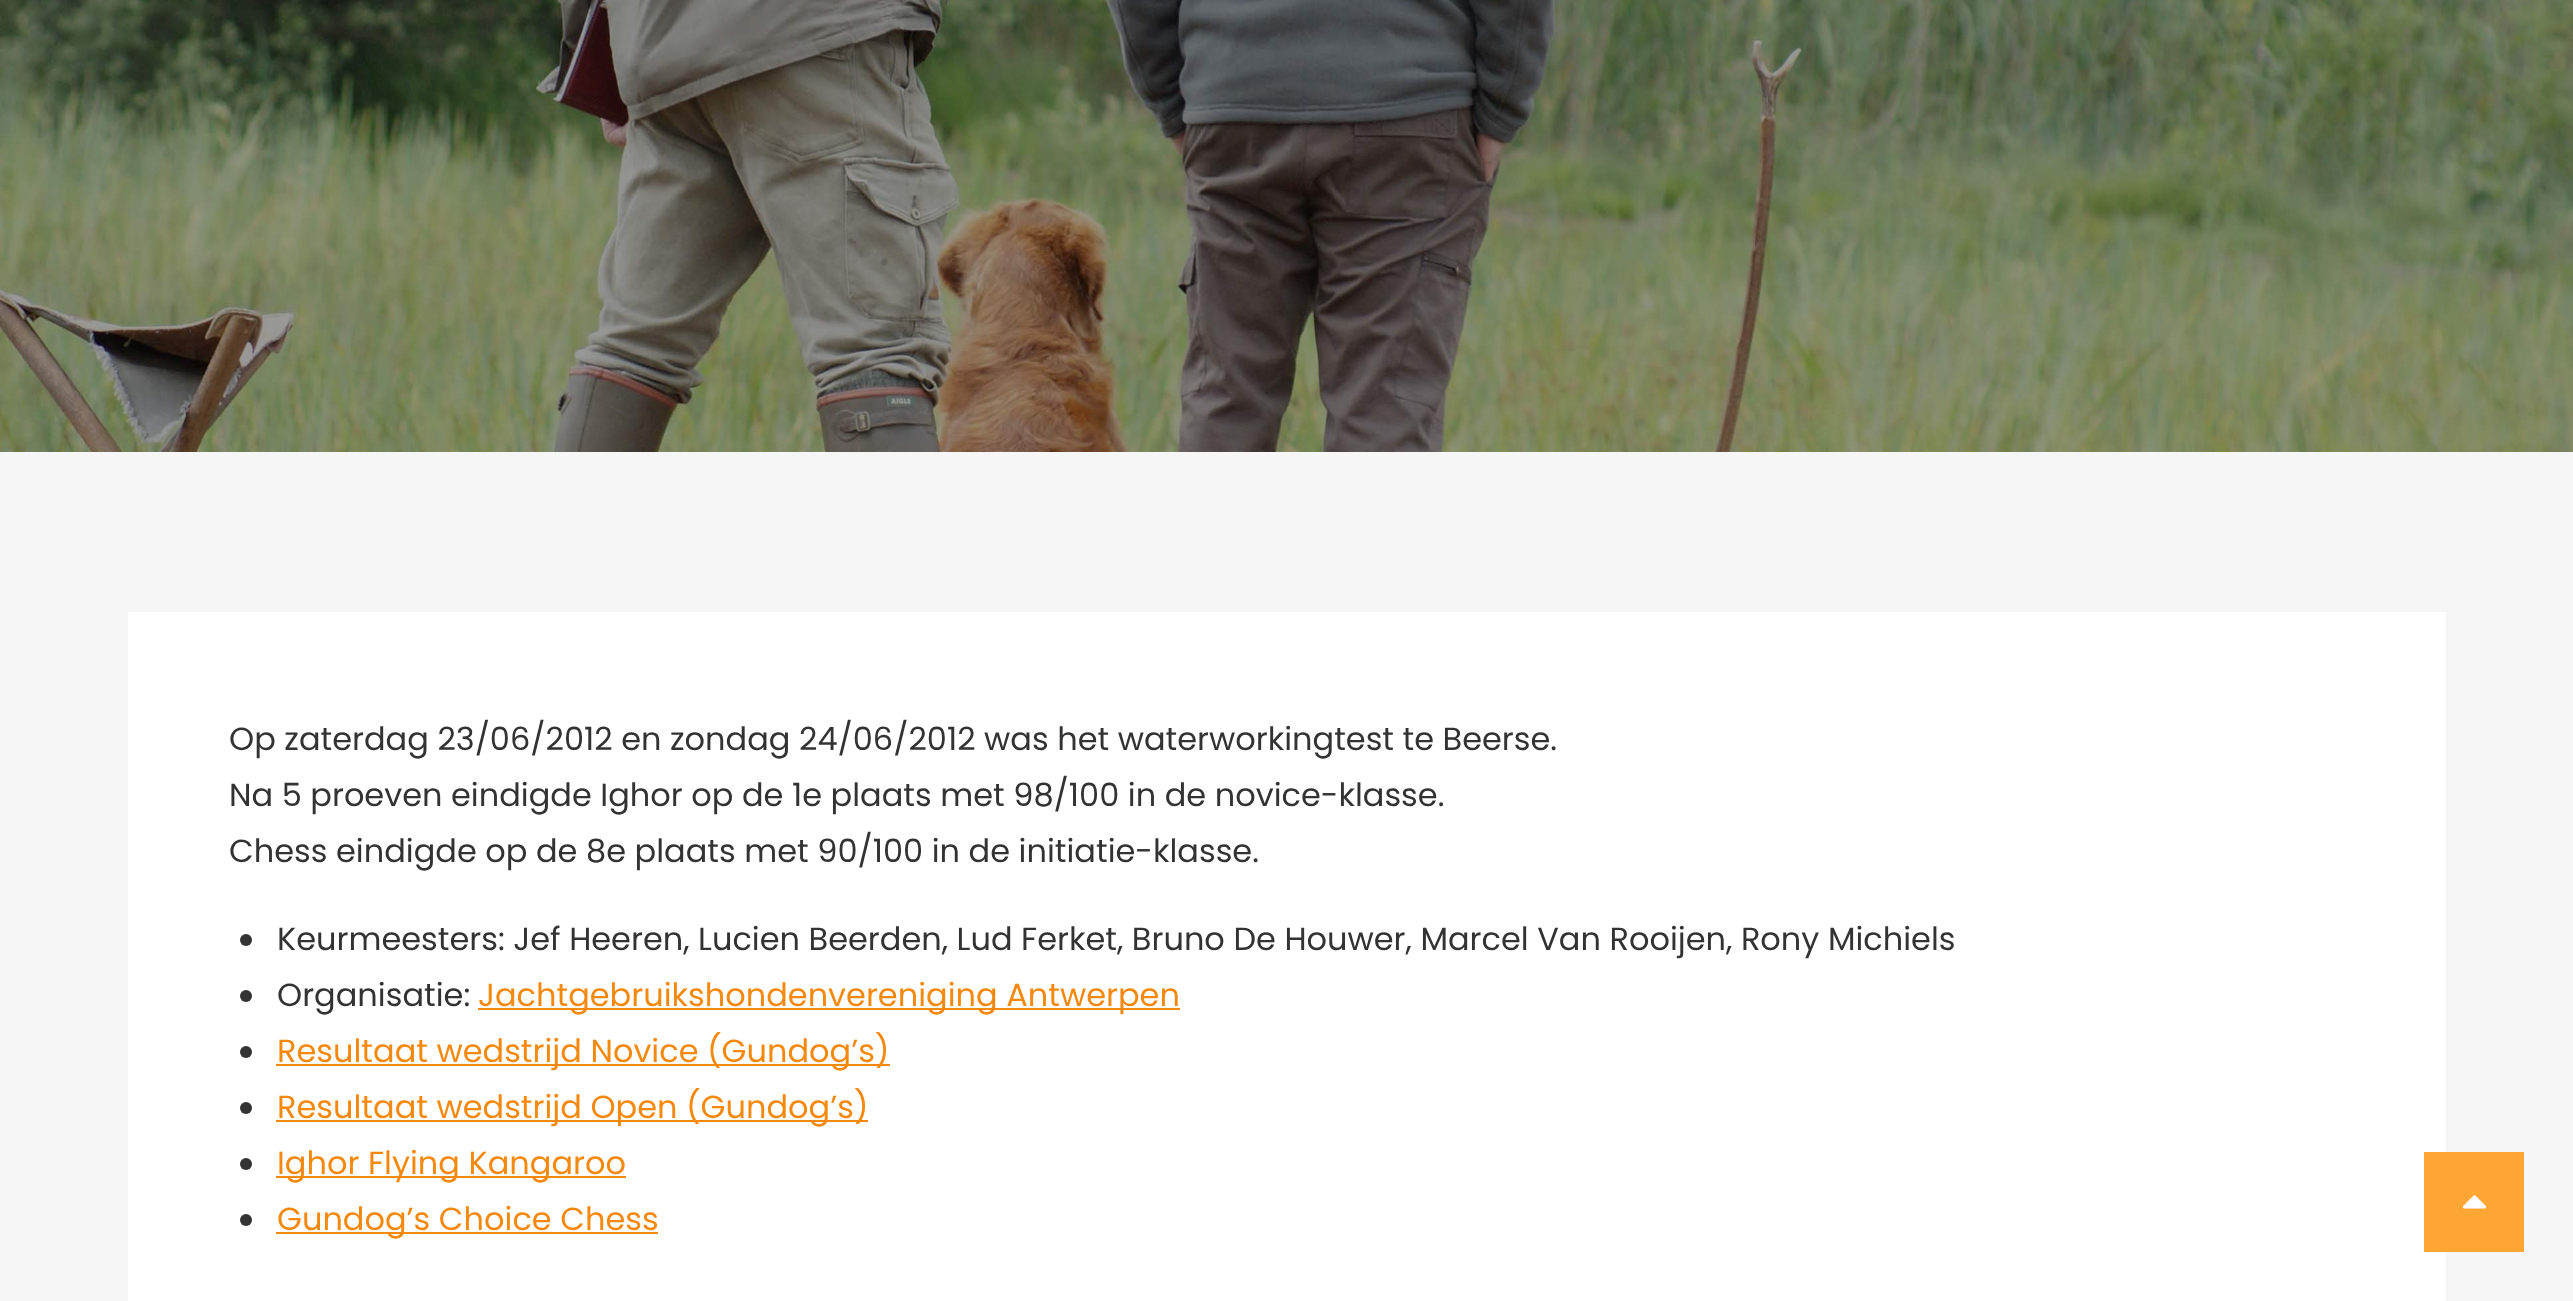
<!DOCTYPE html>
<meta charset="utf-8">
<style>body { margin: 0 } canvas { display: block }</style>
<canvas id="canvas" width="2573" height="1301"></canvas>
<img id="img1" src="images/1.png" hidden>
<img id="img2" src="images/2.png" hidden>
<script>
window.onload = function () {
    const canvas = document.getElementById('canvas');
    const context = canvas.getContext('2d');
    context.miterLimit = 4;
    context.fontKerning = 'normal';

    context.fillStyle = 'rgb(246, 246, 246)';
    context.fillRect(0, 0, 2573, 1301);
    context.drawImage(document.getElementById('img1'), 0, 0, 2573, 452);
    context.fillStyle = 'rgb(255, 255, 255)';
    context.fillRect(128, 612, 2318, 689);
    context.fillStyle = 'rgb(51, 51, 51)';
    context.beginPath();
    context.arc(246, 940, 6, 0, 2 * Math.PI);
    context.fill();
    context.beginPath();
    context.arc(246, 996, 6, 0, 2 * Math.PI);
    context.fill();
    context.fillStyle = 'rgb(245, 137, 13)';
    context.fillRect(478, 1008, 702, 2);
    context.fillStyle = 'rgb(51, 51, 51)';
    context.beginPath();
    context.arc(246, 1052, 6, 0, 2 * Math.PI);
    context.fill();
    context.fillStyle = 'rgb(245, 137, 13)';
    context.fillRect(276, 1064, 614, 2);
    context.fillStyle = 'rgb(51, 51, 51)';
    context.beginPath();
    context.arc(246, 1108, 6, 0, 2 * Math.PI);
    context.fill();
    context.fillStyle = 'rgb(245, 137, 13)';
    context.fillRect(276, 1120, 592, 2);
    context.fillStyle = 'rgb(51, 51, 51)';
    context.beginPath();
    context.arc(246, 1164, 6, 0, 2 * Math.PI);
    context.fill();
    context.fillStyle = 'rgb(245, 137, 13)';
    context.fillRect(276, 1176, 350, 2);
    context.fillStyle = 'rgb(51, 51, 51)';
    context.beginPath();
    context.arc(246, 1220, 6, 0, 2 * Math.PI);
    context.fill();
    context.fillStyle = 'rgb(245, 137, 13)';
    context.fillRect(276, 1232, 382, 2);
    context.fillStyle = 'rgb(254, 166, 51)';
    context.fillRect(2424, 1152, 100, 100);
    context.drawImage(document.getElementById('img2'), 2462, 1195, 25, 14);
    context.font = '32px Poppins';
    context.fillStyle = 'rgb(51, 51, 51)';
    context.fillText('Op zaterdag 23/06/2012 en zondag 24/06/2012 was het waterworkingtest te Beerse.', 229, 750);
    context.fillText('Na 5 proeven eindigde Ighor op de 1e plaats met 98/100 in de novice-klasse.', 229, 806);
    context.fillText('Chess eindigde op de 8e plaats met 90/100 in de initiatie-klasse.', 229, 862);
    context.fillText('Keurmeesters: Jef Heeren, Lucien Beerden, Lud Ferket, Bruno De Houwer, Marcel Van Rooijen, Rony Michiels', 277, 950);
    context.fillText('Organisatie:', 277, 1006);
    context.fillStyle = 'rgb(245, 137, 13)';
    context.fillText('Jachtgebruikshondenvereniging Antwerpen', 478, 1006);
    context.fillText('Resultaat wedstrijd Novice (Gundog’s)', 277, 1062);
    context.fillText('Resultaat wedstrijd Open (Gundog’s)', 277, 1118);
    context.fillText('Ighor Flying Kangaroo', 277, 1174);
    context.fillText('Gundog’s Choice Chess', 277, 1230);
};
</script>
